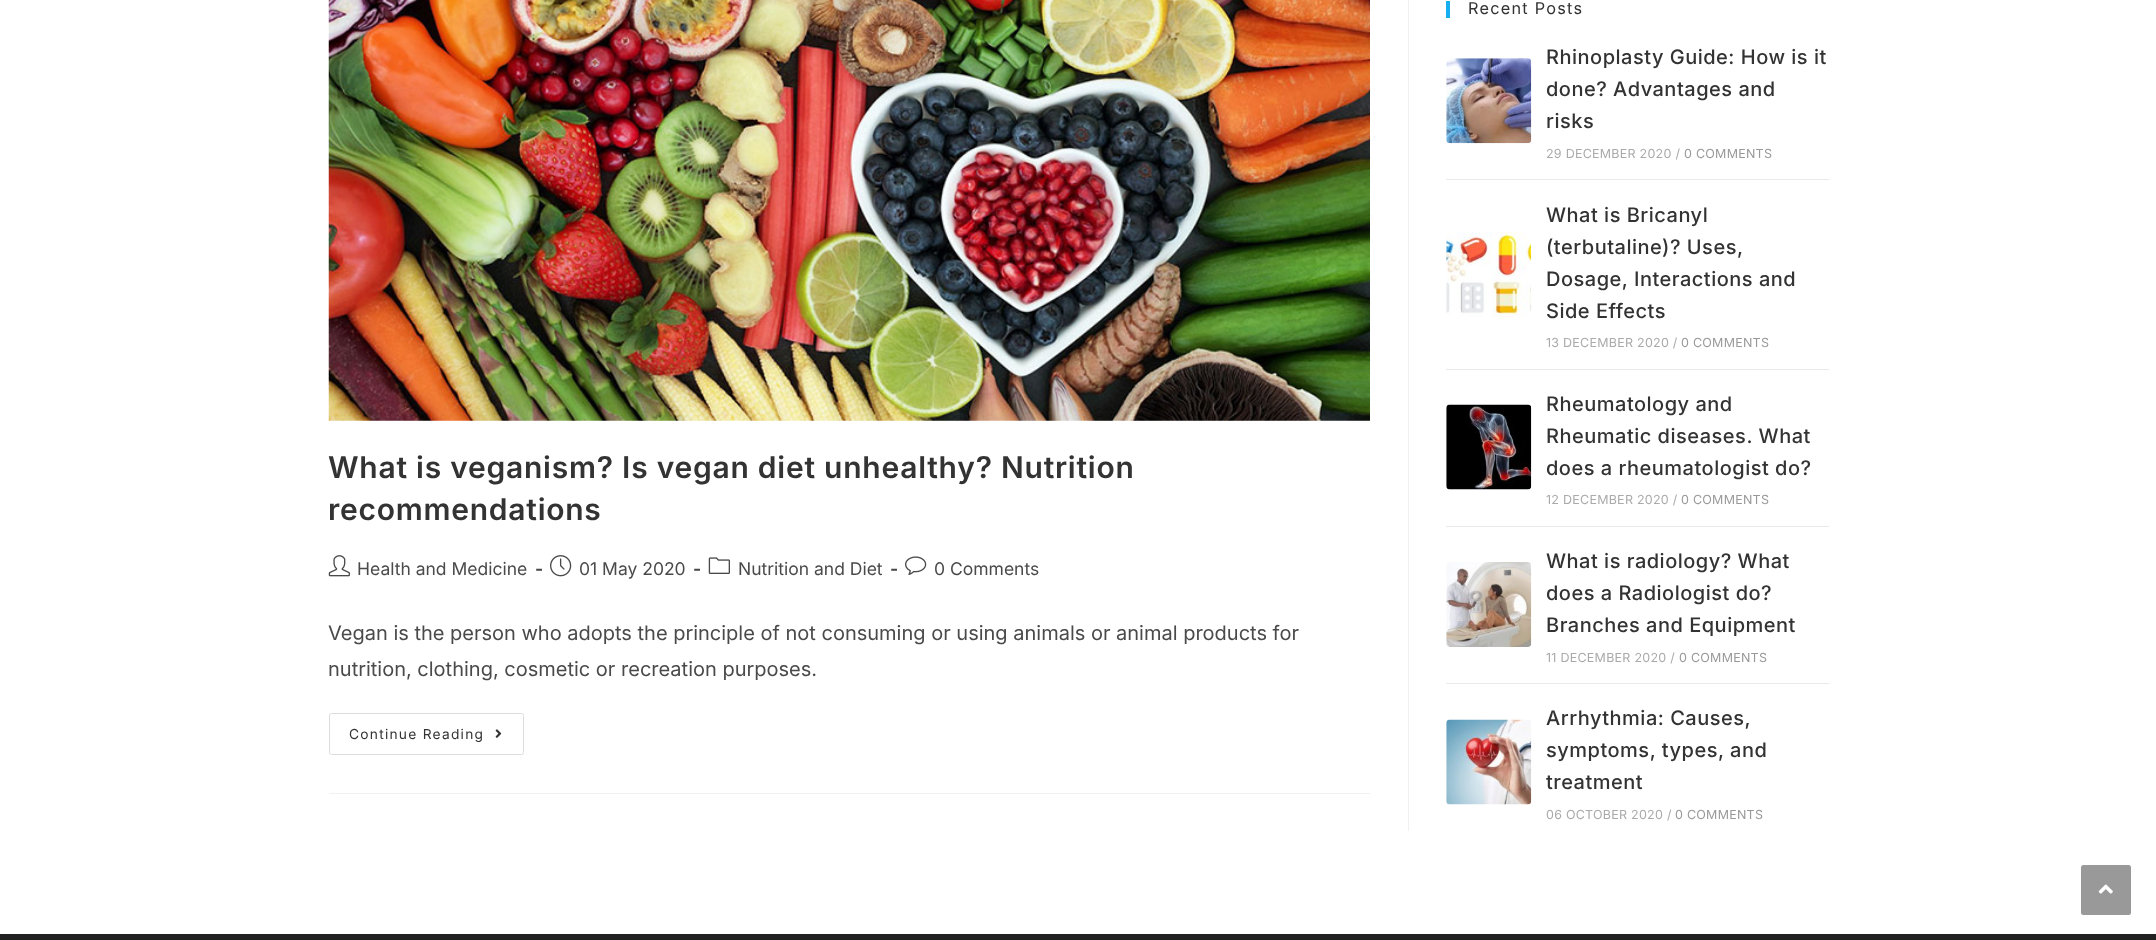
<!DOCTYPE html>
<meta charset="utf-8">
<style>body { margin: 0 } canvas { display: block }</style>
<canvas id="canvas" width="2156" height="940"></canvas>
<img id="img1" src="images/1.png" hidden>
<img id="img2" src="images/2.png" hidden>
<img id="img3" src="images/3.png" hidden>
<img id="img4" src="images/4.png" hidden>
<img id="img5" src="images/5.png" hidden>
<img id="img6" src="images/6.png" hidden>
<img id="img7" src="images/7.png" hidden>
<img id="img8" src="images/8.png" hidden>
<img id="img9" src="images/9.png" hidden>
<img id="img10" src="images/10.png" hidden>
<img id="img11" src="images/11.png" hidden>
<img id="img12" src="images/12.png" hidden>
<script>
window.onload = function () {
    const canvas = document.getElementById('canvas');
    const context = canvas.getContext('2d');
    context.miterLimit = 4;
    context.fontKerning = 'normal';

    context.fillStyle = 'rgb(255, 255, 255)';
    context.fillRect(0, 0, 2156, 940);
    context.fillStyle = 'rgb(241, 241, 241)';
    context.fillRect(1408, 0, 1, 831);
    context.fillRect(329, 793, 1041, 1);
    context.drawImage(document.getElementById('img1'), 328, 0, 1042, 421);
    context.drawImage(document.getElementById('img2'), 328, 555, 22, 22);
    context.drawImage(document.getElementById('img3'), 550, 555, 22, 22);
    context.drawImage(document.getElementById('img4'), 708, 557, 22, 17);
    context.drawImage(document.getElementById('img5'), 905, 556, 22, 19);
    context.beginPath();
    context.roundRect(329.5, 713.5, 194, 41, 2);
    context.strokeStyle = 'rgb(221, 221, 221)';
    context.stroke();
    context.drawImage(document.getElementById('img6'), 495, 729, 7, 9);
    context.fillStyle = 'rgb(19, 175, 240)';
    context.fillRect(1446, 1, 4, 17);
    context.drawImage(document.getElementById('img7'), 1446, 58, 86, 86);
    context.fillStyle = 'rgb(233, 233, 233)';
    context.fillRect(1446, 179, 383, 1);
    context.drawImage(document.getElementById('img8'), 1446, 232, 86, 85);
    context.fillRect(1446, 369, 383, 1);
    context.drawImage(document.getElementById('img9'), 1446, 404, 86, 86);
    context.fillRect(1446, 526, 383, 1);
    context.drawImage(document.getElementById('img10'), 1446, 562, 86, 85);
    context.fillRect(1446, 683, 383, 1);
    context.drawImage(document.getElementById('img11'), 1446, 719, 86, 86);
    context.fillStyle = 'rgb(34, 34, 34)';
    context.fillRect(0, 934, 2156, 6);
    context.fillStyle = 'rgb(153, 153, 153)';
    context.beginPath();
    context.roundRect(2081, 865, 50, 50, 2.5);
    context.fill();
    context.drawImage(document.getElementById('img12'), 2098, 884, 15, 10);
    context.letterSpacing = '0.75px';
    context.font = '600 30px Inter';
    context.fillStyle = 'rgb(51, 51, 51)';
    context.fillText('What is veganism? Is vegan diet unhealthy? Nutrition', 328, 478);
    context.fillText('recommendations', 328, 520);
    context.letterSpacing = '0px';
    context.font = '17.5px Inter';
    context.fillStyle = 'rgb(74, 74, 74)';
    context.fillText('Health and Medicine', 357, 575);
    context.font = 'bold 17.5px Inter';
    context.fillText('-', 535, 575);
    context.font = '17.5px Inter';
    context.fillText('01 May 2020', 579, 575);
    context.font = 'bold 17.5px Inter';
    context.fillText('-', 693, 575);
    context.font = '17.5px Inter';
    context.fillText('Nutrition and Diet', 738, 575);
    context.font = 'bold 17.5px Inter';
    context.fillText('-', 890, 575);
    context.font = '17.5px Inter';
    context.fillText('0 Comments', 934, 575);
    context.font = '20px Inter';
    context.fillText('Vegan is the person who adopts the principle of not consuming or using animals or animal products for', 328, 640);
    context.fillText('nutrition, clothing, cosmetic or recreation purposes.', 328, 676);
    context.letterSpacing = '1.25px';
    context.font = '13.75px Inter';
    context.fillStyle = 'rgb(51, 51, 51)';
    context.fillText('Continue Reading', 349, 739);
    context.font = '16.25px Inter';
    context.fillText('Recent Posts', 1468, 14);
    context.letterSpacing = '0.5px';
    context.font = '500 20px Inter';
    context.fillText('Rhinoplasty Guide: How is it', 1546, 64);
    context.fillText('done? Advantages and', 1546, 96);
    context.fillText('risks', 1546, 128);
    context.letterSpacing = '0.25px';
    context.font = '12.5px Inter';
    context.fillStyle = 'rgb(170, 170, 170)';
    context.fillText('29 DECEMBER 2020 /', 1546, 158);
    context.fillStyle = 'rgb(153, 153, 153)';
    context.fillText('0 COMMENTS', 1684, 158);
    context.letterSpacing = '0.5px';
    context.font = '500 20px Inter';
    context.fillStyle = 'rgb(51, 51, 51)';
    context.fillText('What is Bricanyl', 1546, 222);
    context.fillText('(terbutaline)? Uses,', 1546, 254);
    context.fillText('Dosage, Interactions and', 1546, 286);
    context.fillText('Side Effects', 1546, 318);
    context.letterSpacing = '0.25px';
    context.font = '12.5px Inter';
    context.fillStyle = 'rgb(170, 170, 170)';
    context.fillText('13 DECEMBER 2020 /', 1546, 347);
    context.fillStyle = 'rgb(153, 153, 153)';
    context.fillText('0 COMMENTS', 1681, 347);
    context.letterSpacing = '0.5px';
    context.font = '500 20px Inter';
    context.fillStyle = 'rgb(51, 51, 51)';
    context.fillText('Rheumatology and', 1546, 411);
    context.fillText('Rheumatic diseases. What', 1546, 443);
    context.fillText('does a rheumatologist do?', 1546, 475);
    context.letterSpacing = '0.25px';
    context.font = '12.5px Inter';
    context.fillStyle = 'rgb(170, 170, 170)';
    context.fillText('12 DECEMBER 2020 /', 1546, 504);
    context.fillStyle = 'rgb(153, 153, 153)';
    context.fillText('0 COMMENTS', 1681, 504);
    context.letterSpacing = '0.5px';
    context.font = '500 20px Inter';
    context.fillStyle = 'rgb(51, 51, 51)';
    context.fillText('What is radiology? What', 1546, 568);
    context.fillText('does a Radiologist do?', 1546, 600);
    context.fillText('Branches and Equipment', 1546, 632);
    context.letterSpacing = '0.25px';
    context.font = '12.5px Inter';
    context.fillStyle = 'rgb(170, 170, 170)';
    context.fillText('11 DECEMBER 2020 /', 1546, 662);
    context.fillStyle = 'rgb(153, 153, 153)';
    context.fillText('0 COMMENTS', 1679, 662);
    context.letterSpacing = '0.5px';
    context.font = '500 20px Inter';
    context.fillStyle = 'rgb(51, 51, 51)';
    context.fillText('Arrhythmia: Causes,', 1546, 725);
    context.fillText('symptoms, types, and', 1546, 757);
    context.fillText('treatment', 1546, 789);
    context.letterSpacing = '0.25px';
    context.font = '12.5px Inter';
    context.fillStyle = 'rgb(170, 170, 170)';
    context.fillText('06 OCTOBER 2020 /', 1546, 819);
    context.fillStyle = 'rgb(153, 153, 153)';
    context.fillText('0 COMMENTS', 1675, 819);
};
</script>
